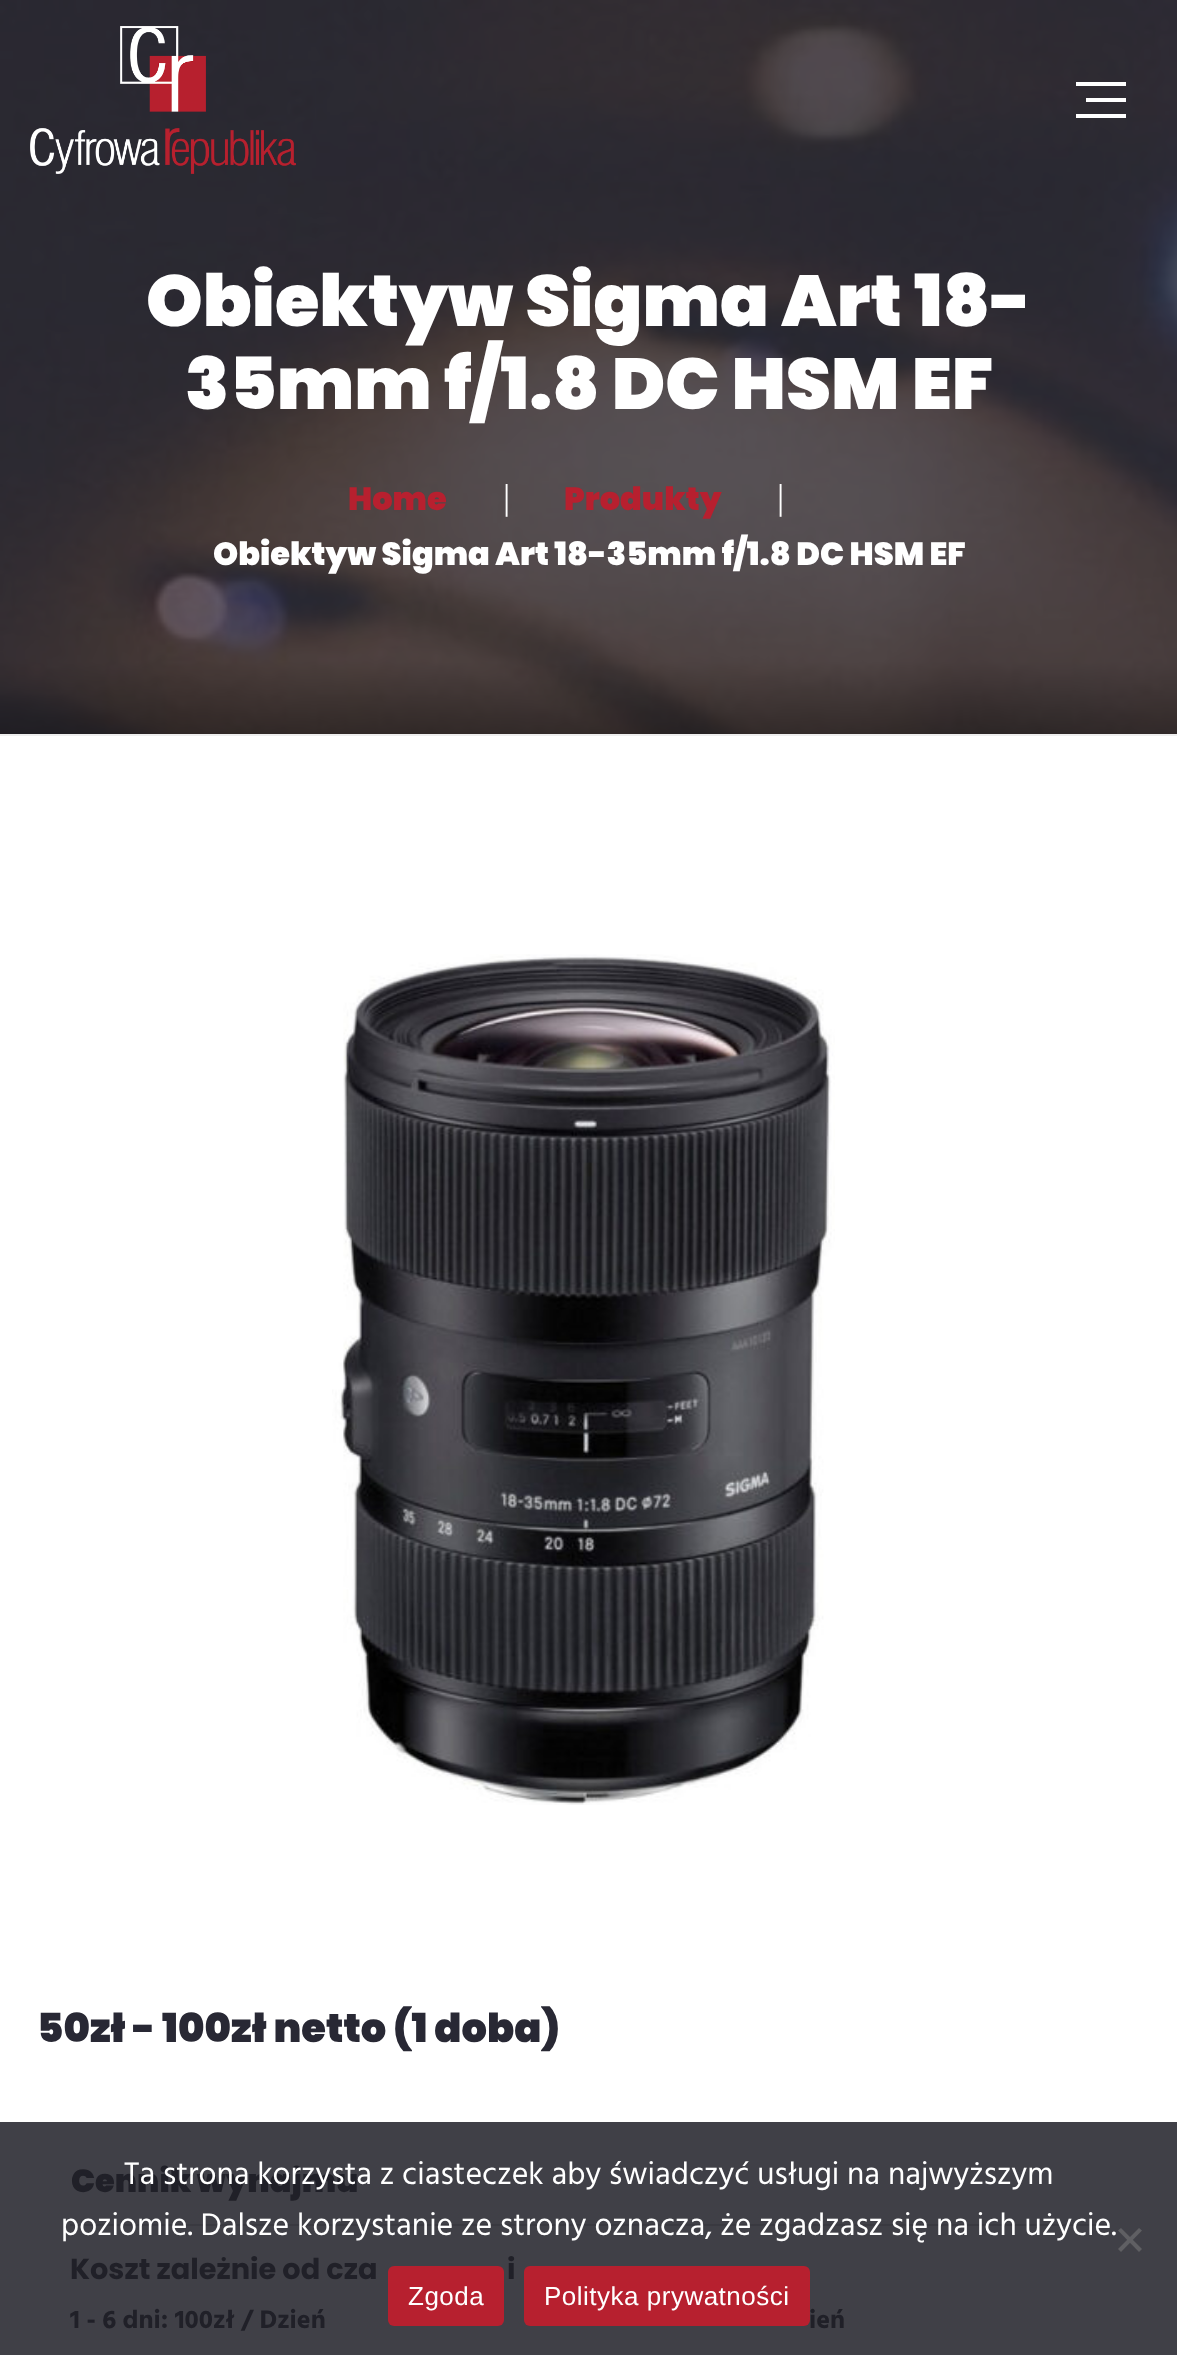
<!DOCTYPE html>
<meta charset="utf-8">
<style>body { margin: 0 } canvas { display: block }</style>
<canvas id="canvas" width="1177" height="2355"></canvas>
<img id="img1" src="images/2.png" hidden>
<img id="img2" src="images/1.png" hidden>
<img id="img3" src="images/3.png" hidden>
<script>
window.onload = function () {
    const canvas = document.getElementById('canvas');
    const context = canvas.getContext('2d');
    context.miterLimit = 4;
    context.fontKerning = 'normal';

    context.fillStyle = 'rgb(255, 255, 255)';
    context.fillRect(0, 0, 1177, 2355);
    context.fillStyle = 'rgb(64, 64, 71)';
    context.fillRect(0, 2122, 1177, 233);
    context.drawImage(document.getElementById('img1'), 0, 0, 1177, 734);
    context.drawImage(document.getElementById('img2'), 30, 26, 266, 148);
    context.fillStyle = 'rgb(255, 255, 255)';
    context.fillRect(1076, 82, 50, 4);
    context.fillRect(1086, 98, 40, 4);
    context.fillRect(1076, 114, 50, 4);
    context.fillStyle = 'rgb(238, 238, 238)';
    context.fillRect(0, 734, 1177, 2);
    context.drawImage(document.getElementById('img3'), 332, 954, 503, 851);
    context.fillStyle = 'rgb(57, 57, 64)';
    context.fillRect(70, 2224, 1038, 2);
    context.fillStyle = 'rgb(95, 95, 99)';
    context.beginPath();
    context.moveTo(1139, 2228);
    context.lineTo(1142, 2230.5);
    context.lineTo(1121, 2252);
    context.lineTo(1118, 2249);
    context.closePath();
    context.fill();
    context.beginPath();
    context.moveTo(1118, 2230.5);
    context.lineTo(1121, 2228);
    context.lineTo(1142, 2249);
    context.lineTo(1139, 2252);
    context.closePath();
    context.fill();
    context.fillStyle = 'rgb(183, 32, 47)';
    context.beginPath();
    context.roundRect(388, 2266, 116, 60, 6);
    context.fill();
    context.beginPath();
    context.roundRect(524, 2266, 286, 60, 6);
    context.fill();
    context.font = '900 72px Poppins';
    context.fillStyle = 'rgb(255, 255, 255)';
    context.fillText('Obiektyw Sigma Art 18-', 146, 326);
    context.fillText('35mm f/1.8 DC HSM EF', 185, 409);
    context.font = '900 32px Poppins';
    context.fillStyle = 'rgb(183, 32, 47)';
    context.fillText('Home', 348, 510);
    context.font = '36px Liberation Serif';
    context.fillStyle = 'rgb(255, 255, 255)';
    context.fillText('|', 503, 509);
    context.font = '900 32px Poppins';
    context.fillStyle = 'rgb(183, 32, 47)';
    context.fillText('Produkty', 564, 510);
    context.font = '36px Liberation Serif';
    context.fillStyle = 'rgb(255, 255, 255)';
    context.fillText('|', 777, 509);
    context.font = '900 32px Poppins';
    context.fillText('Obiektyw Sigma Art 18-35mm f/1.8 DC HSM EF', 213, 565);
    context.font = '900 40px Poppins';
    context.fillStyle = 'rgb(40, 40, 52)';
    context.fillText('50zł - 100zł netto (1 doba)', 37, 2042);
    context.font = '900 32px Poppins';
    context.fillStyle = 'rgb(32, 32, 40)';
    context.fillText('Cennik wynajmu', 71, 2192);
    context.font = 'bold 28.75px Poppins';
    context.fillText('Koszt zależnie od cza', 70, 2279);
    context.fillText('i', 507, 2279);
    context.font = 'bold 26px Hind';
    context.fillText('1 - 6 dni: 100zł / Dzień', 70, 2328);
    context.fillText('ień', 809, 2328);
    context.font = '32px Hind';
    context.fillStyle = 'rgb(255, 255, 255)';
    context.fillText('Ta strona korzysta z ciasteczek aby świadczyć usługi na najwyższym', 124, 2184);
    context.fillText('poziomie. Dalsze korzystanie ze strony oznacza, że zgadzasz się na ich użycie.', 61, 2235);
    context.letterSpacing = '0.5px';
    context.font = '26px Liberation Sans';
    context.fillText('Zgoda', 408, 2305);
    context.fillText('Polityka prywatności', 544, 2305);
};
</script>
